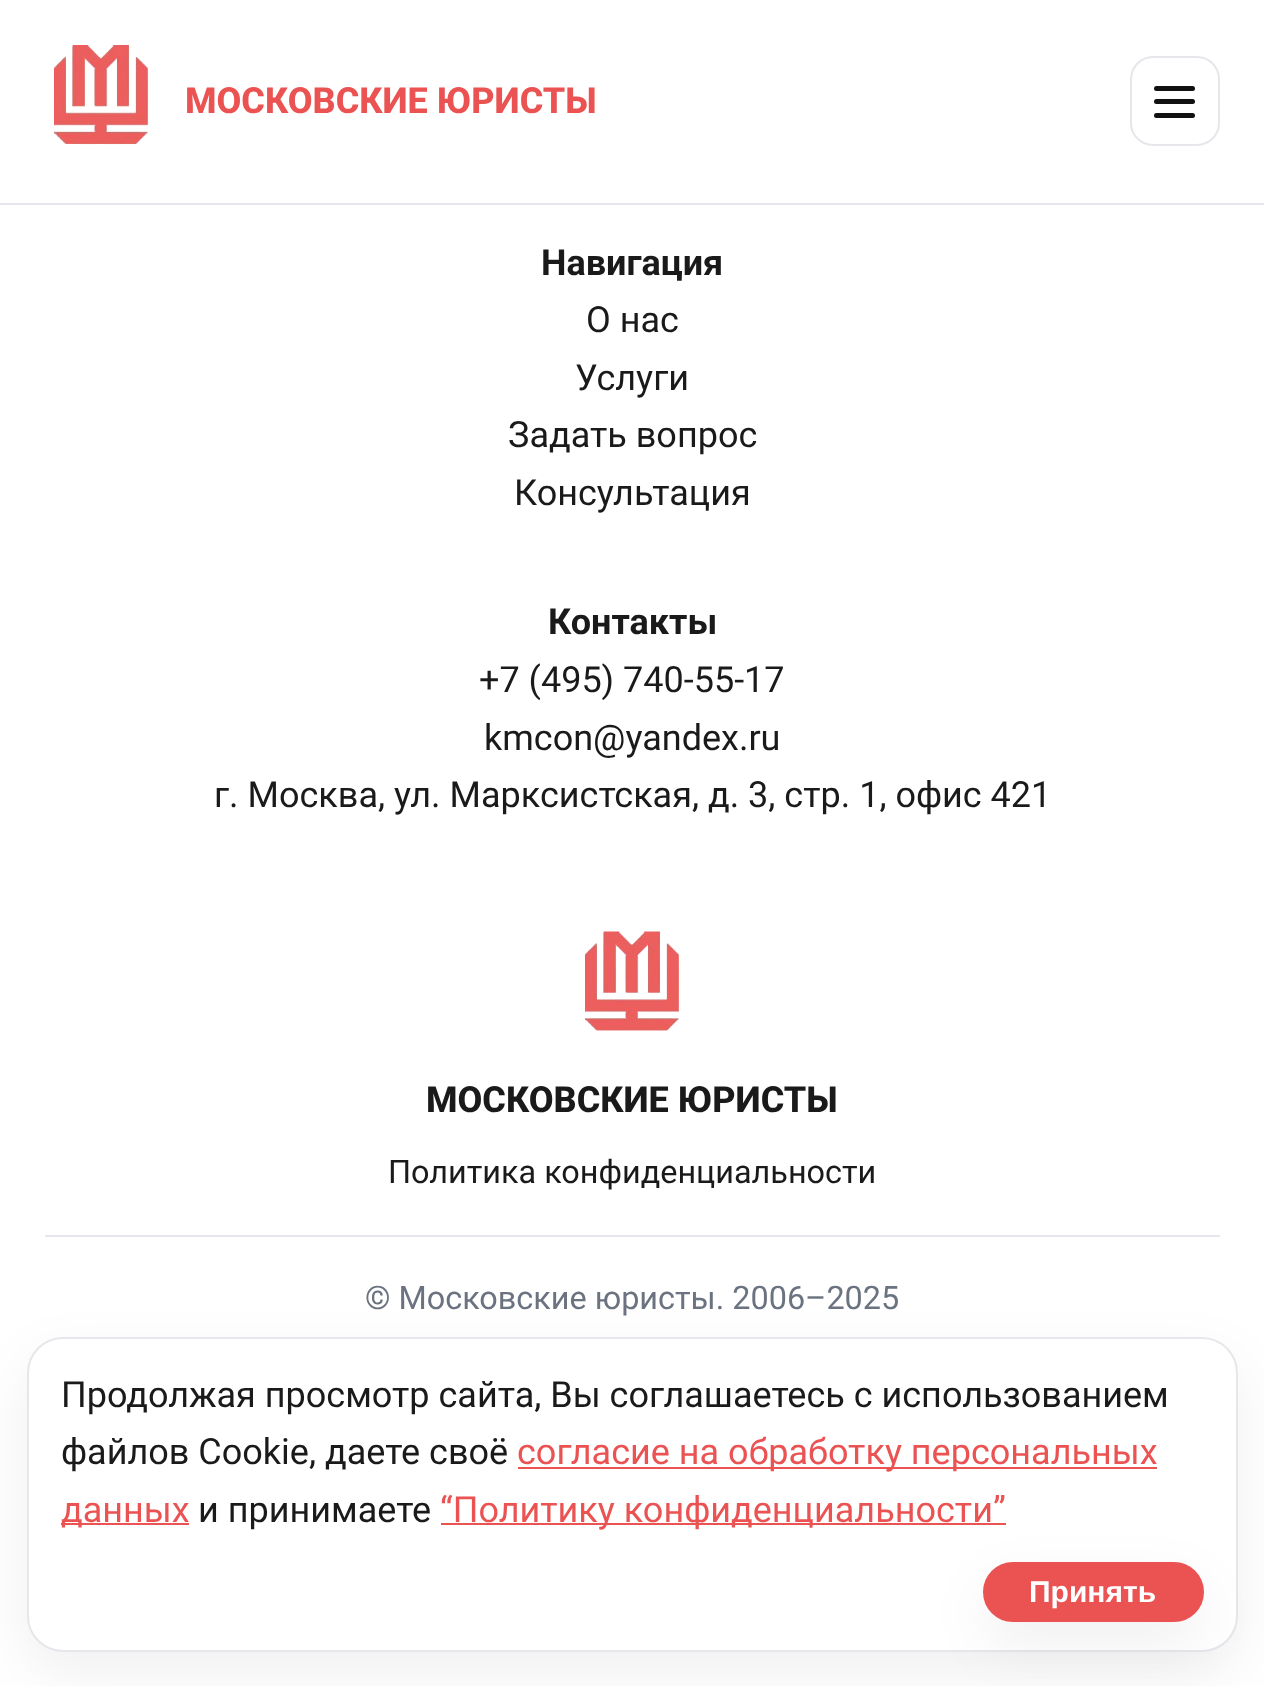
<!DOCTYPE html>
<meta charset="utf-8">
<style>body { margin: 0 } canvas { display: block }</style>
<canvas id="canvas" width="1264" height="1686"></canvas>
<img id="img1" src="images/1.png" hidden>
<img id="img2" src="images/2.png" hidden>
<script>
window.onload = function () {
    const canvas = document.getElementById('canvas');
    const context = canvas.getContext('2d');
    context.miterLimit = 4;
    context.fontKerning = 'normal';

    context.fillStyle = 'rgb(255, 255, 255)';
    context.fillRect(0, 0, 1264, 1686);
    context.fillStyle = 'rgb(229, 231, 235)';
    context.fillRect(0, 203, 1264, 2);
    context.drawImage(document.getElementById('img1'), 54, 45, 95, 100);
    context.beginPath();
    context.roundRect(1131, 57, 88, 88, 22);
    context.strokeStyle = 'rgb(229, 231, 235)';
    context.lineWidth = 2;
    context.stroke();
    context.fillStyle = 'rgb(17, 17, 17)';
    context.beginPath();
    context.roundRect(1154, 99, 41, 5, 2.5);
    context.fill();
    context.beginPath();
    context.roundRect(1154, 86, 41, 5, 2.5);
    context.fill();
    context.beginPath();
    context.roundRect(1154, 113, 41, 5, 2.5);
    context.fill();
    context.drawImage(document.getElementById('img2'), 585, 931, 95, 100);
    context.fillStyle = 'rgb(229, 231, 235)';
    context.fillRect(45, 1235, 1175, 2);
    context.fillStyle = 'rgba(0, 0, 0, 0.06)';
    context.filter = 'blur(28px)';
    context.beginPath();
    context.roundRect(27, 1359, 1211, 315, 36);
    context.fill();
    context.filter = 'none';
    context.fillStyle = 'rgb(255, 255, 255)';
    context.beginPath();
    context.roundRect(28, 1338, 1209, 313, 35);
    context.fill();
    context.stroke();
    context.fillStyle = 'rgb(235, 83, 83)';
    context.fillRect(518, 1467, 639, 2);
    context.fillRect(61, 1523, 128, 2);
    context.fillRect(441, 1523, 565, 2);
    context.fillStyle = 'rgba(0, 0, 0, 0.06)';
    context.filter = 'blur(28px)';
    context.beginPath();
    context.roundRect(983, 1584, 221, 61, 30.5);
    context.fill();
    context.filter = 'none';
    context.fillStyle = 'rgb(235, 83, 83)';
    context.beginPath();
    context.roundRect(984, 1563, 219, 58, 29);
    context.fill();
    context.strokeStyle = 'rgb(235, 83, 83)';
    context.stroke();
    context.font = '800 36px Roboto';
    context.fillText('МОСКОВСКИЕ ЮРИСТЫ', 185, 113);
    context.font = 'bold 36px Roboto';
    context.fillStyle = 'rgb(26, 26, 26)';
    context.fillText('Навигация', 541, 275);
    context.font = '36px Roboto';
    context.fillText('О нас', 586, 332);
    context.fillText('Услуги', 575, 390);
    context.fillText('Задать вопрос', 508, 447);
    context.fillText('Консультация', 514, 505);
    context.font = 'bold 36px Roboto';
    context.fillText('Контакты', 548, 634);
    context.font = '36px Roboto';
    context.fillText('+7 (495) 740‑55‑17', 479, 692);
    context.fillText('kmcon@yandex.ru', 484, 750);
    context.fillText('г. Москва, ул. Марксистская, д. 3, стр. 1, офис 421', 214, 807);
    context.font = '800 36px Roboto';
    context.fillText('МОСКОВСКИЕ ЮРИСТЫ', 426, 1112);
    context.font = '32.4px Roboto';
    context.fillText('Политика конфиденциальности', 388, 1183);
    context.fillStyle = 'rgb(107, 114, 128)';
    context.fillText('© Московские юристы. 2006–2025', 365, 1309);
    context.font = '36px Roboto';
    context.fillStyle = 'rgb(26, 26, 26)';
    context.fillText('Продолжая просмотр сайта, Вы соглашаетесь с использованием', 61, 1407);
    context.fillText('файлов Cookie, даете своё', 61, 1464);
    context.fillStyle = 'rgb(235, 83, 83)';
    context.fillText('согласие на обработку персональных', 517, 1464);
    context.fillText('данных', 61, 1522);
    context.fillStyle = 'rgb(26, 26, 26)';
    context.fillText('и принимаете', 198, 1522);
    context.fillStyle = 'rgb(235, 83, 83)';
    context.fillText('“Политику конфиденциальности”', 440, 1522);
    context.font = 'bold 30px Liberation Sans';
    context.fillStyle = 'rgb(255, 255, 255)';
    context.fillText('Принять', 1029, 1602);
};
</script>
